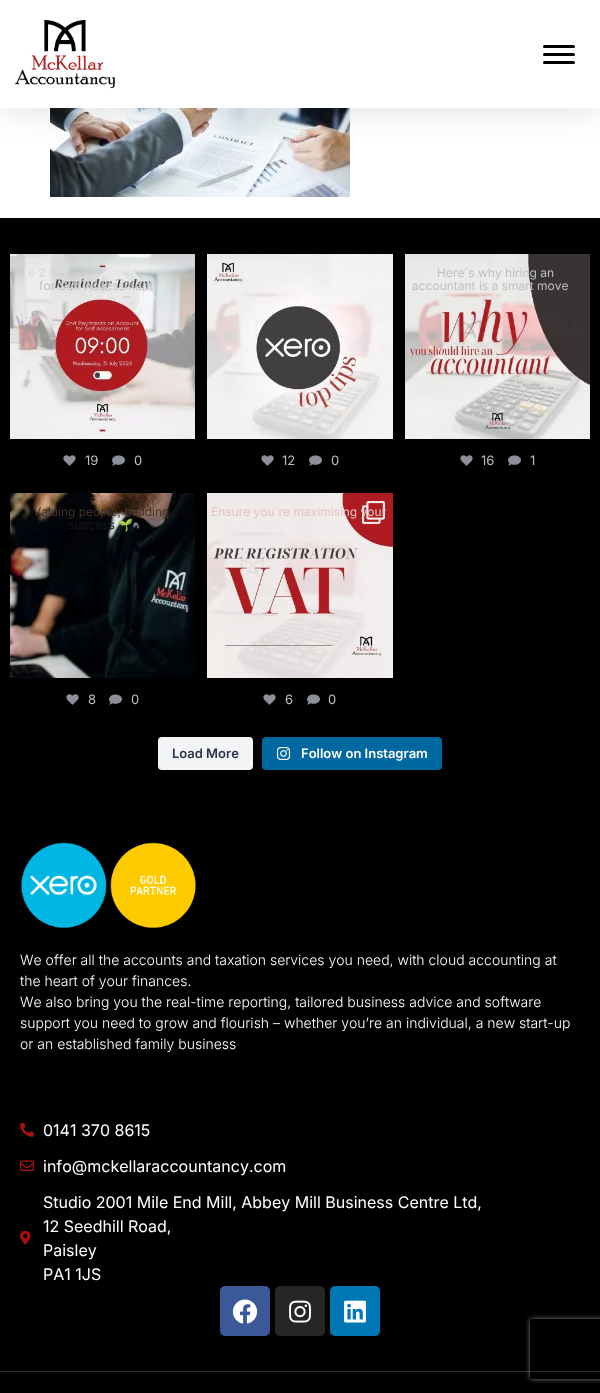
<!DOCTYPE html>
<meta charset="utf-8">
<style>body { margin: 0 } canvas { display: block }</style>
<canvas id="canvas" width="600" height="1393"></canvas>
<img id="img1" src="images/2.png" hidden>
<img id="img2" src="images/1.png" hidden>
<img id="img3" src="images/3.png" hidden>
<img id="img4" src="images/4.png" hidden>
<img id="img5" src="images/5.png" hidden>
<img id="img6" src="images/6.png" hidden>
<img id="img7" src="images/7.png" hidden>
<img id="img8" src="images/8.png" hidden>
<img id="img9" src="images/9.png" hidden>
<img id="img10" src="images/10.png" hidden>
<img id="img11" src="images/11.png" hidden>
<img id="img12" src="images/12.png" hidden>
<img id="img13" src="images/13.png" hidden>
<img id="img14" src="images/14.png" hidden>
<img id="img15" src="images/15.png" hidden>
<img id="img16" src="images/16.png" hidden>
<img id="img17" src="images/17.png" hidden>
<img id="img18" src="images/18.png" hidden>
<script>
window.onload = function () {
    const canvas = document.getElementById('canvas');
    const context = canvas.getContext('2d');
    context.miterLimit = 4;
    context.fontKerning = 'none';

    context.fillStyle = 'rgb(255, 255, 255)';
    context.fillRect(0, 0, 600, 1393);
    context.drawImage(document.getElementById('img1'), 50, 108, 300, 89);
    context.fillStyle = 'rgba(0, 0, 0, 0.1)';
    context.filter = 'blur(15px)';
    context.beginPath();
    context.rect(0, 5, 600, 108);
    context.fill();
    context.filter = 'none';
    context.fillStyle = 'rgb(255, 255, 255)';
    context.fillRect(0, 0, 600, 108);
    context.drawImage(document.getElementById('img2'), 15, 20, 100, 69);
    context.fillStyle = 'rgb(0, 0, 0)';
    context.beginPath();
    context.roundRect(543, 45, 32, 3, 1.5);
    context.fill();
    context.beginPath();
    context.roundRect(543, 53, 32, 3, 1.5);
    context.fill();
    context.beginPath();
    context.roundRect(543, 61, 32, 3, 1.5);
    context.fill();
    context.fillRect(0, 218, 600, 1153);
    context.drawImage(document.getElementById('img3'), 10, 254, 185, 185);
    context.drawImage(document.getElementById('img4'), 63, 455, 13, 11);
    context.drawImage(document.getElementById('img5'), 112, 455, 13, 11);
    context.drawImage(document.getElementById('img6'), 207, 254, 186, 185);
    context.drawImage(document.getElementById('img4'), 261, 455, 13, 11);
    context.drawImage(document.getElementById('img5'), 309, 455, 13, 11);
    context.drawImage(document.getElementById('img7'), 405, 254, 185, 185);
    context.drawImage(document.getElementById('img4'), 460, 455, 13, 11);
    context.drawImage(document.getElementById('img5'), 508, 455, 13, 11);
    context.drawImage(document.getElementById('img8'), 10, 493, 185, 185);
    context.drawImage(document.getElementById('img4'), 66, 694, 13, 11);
    context.drawImage(document.getElementById('img5'), 109, 694, 13, 11);
    context.drawImage(document.getElementById('img9'), 207, 493, 186, 185);
    context.drawImage(document.getElementById('img10'), 362, 501, 23, 23);
    context.drawImage(document.getElementById('img4'), 263, 694, 13, 11);
    context.drawImage(document.getElementById('img5'), 307, 694, 13, 11);
    context.fillStyle = 'rgb(243, 244, 245)';
    context.beginPath();
    context.roundRect(158, 737, 95, 33, 4);
    context.fill();
    context.fillStyle = 'rgb(0, 104, 160)';
    context.beginPath();
    context.roundRect(262, 737, 180, 33, 4);
    context.fill();
    context.drawImage(document.getElementById('img11'), 277, 747, 14, 13);
    context.drawImage(document.getElementById('img12'), 21, 842, 175, 87);
    context.drawImage(document.getElementById('img13'), 20, 1122, 14, 15);
    context.drawImage(document.getElementById('img14'), 20, 1160, 14, 11);
    context.drawImage(document.getElementById('img15'), 20, 1230, 11, 15);
    context.fillStyle = 'rgb(59, 89, 152)';
    context.beginPath();
    context.roundRect(220, 1286, 50, 50, 5);
    context.fill();
    context.drawImage(document.getElementById('img16'), 232, 1299, 26, 25);
    context.fillStyle = 'rgb(38, 38, 38)';
    context.beginPath();
    context.roundRect(275, 1286, 50, 50, 5);
    context.fill();
    context.drawImage(document.getElementById('img17'), 289, 1300, 22, 23);
    context.fillStyle = 'rgb(0, 119, 181)';
    context.beginPath();
    context.roundRect(330, 1286, 50, 50, 5);
    context.fill();
    context.drawImage(document.getElementById('img18'), 344, 1300, 22, 23);
    context.fillStyle = 'rgb(0, 0, 0)';
    context.fillRect(0, 1372, 600, 21);
    context.fillStyle = 'rgb(48, 48, 48)';
    context.fillRect(0, 1371, 600, 1);
    context.save();
    context.beginPath();
    context.moveTo(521, 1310);
    context.lineTo(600, 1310);
    context.lineTo(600, 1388);
    context.lineTo(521, 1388);
    context.closePath();
    context.moveTo(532, 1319);
    context.lineTo(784, 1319);
    context.bezierCurveTo(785, 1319, 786, 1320, 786, 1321);
    context.lineTo(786, 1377);
    context.bezierCurveTo(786, 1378, 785, 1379, 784, 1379);
    context.lineTo(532, 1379);
    context.bezierCurveTo(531, 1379, 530, 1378, 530, 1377);
    context.lineTo(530, 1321);
    context.bezierCurveTo(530, 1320, 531, 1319, 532, 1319);
    context.closePath();
    context.clip('evenodd');
    context.fillStyle = 'rgb(128, 128, 128)';
    context.filter = 'blur(2.5px)';
    context.beginPath();
    context.roundRect(530, 1319, 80, 60, 2);
    context.fill();
    context.filter = 'none';
    context.restore();
    context.font = '12px Inter';
    context.fillStyle = 'rgb(214, 216, 216)';
    context.fillText('e 2', 28, 277);
    context.fillStyle = 'rgb(191, 191, 191)';
    context.fillText('for Self Assessment', 39, 290);
    context.font = '13px Inter';
    context.fillText('19', 85, 465);
    context.fillText('0', 134, 465);
    context.fillText('12', 282, 465);
    context.fillText('0', 331, 465);
    context.font = '12px Inter';
    context.fillText('Here`s why hiring an', 437, 277);
    context.fillText('accountant is a smart move', 412, 290);
    context.font = '13px Inter';
    context.fillText('16', 481, 465);
    context.fillText('1', 530, 465);
    context.font = '12px Inter';
    context.fillStyle = 'rgb(65, 50, 41)';
    context.fillText('Valuing people, building', 33, 516);
    context.fillStyle = 'rgb(21, 24, 27)';
    context.fillText('success', 68, 529);
    context.font = '12px Noto Color Emoji';
    context.fillStyle = 'rgb(32, 39, 41)';
    context.fillText('🌱', 118, 529);
    context.font = '13px Inter';
    context.fillStyle = 'rgb(191, 191, 191)';
    context.fillText('8', 88, 704);
    context.fillText('0', 131, 704);
    context.font = '12px Inter';
    context.fillStyle = 'rgb(228, 195, 196)';
    context.fillText('Ensure you`re maximising your', 211, 516);
    context.font = '13px Inter';
    context.fillStyle = 'rgb(191, 191, 191)';
    context.fillText('6', 285, 704);
    context.fillText('0', 328, 704);
    context.font = '600 13px Inter';
    context.fillStyle = 'rgb(44, 50, 76)';
    context.fillText('Load More', 172, 758);
    context.fillStyle = 'rgb(255, 255, 255)';
    context.fillText('Follow on Instagram', 301, 758);
    context.font = '300 14px Inter';
    context.fillText('We offer all the accounts and taxation services you need, with cloud accounting at', 20, 965);
    context.fillText('the heart of your finances.', 20, 986);
    context.fillText('We also bring you the real-time reporting, tailored business advice and software', 20, 1007);
    context.fillText('support you need to grow and flourish – whether you’re an individual, a new start-up', 20, 1028);
    context.fillText('or an established family business', 20, 1049);
    context.font = '16px Inter';
    context.fillText('0141 370 8615', 43, 1136);
    context.fillText('info@mckellaraccountancy.com', 43, 1172);
    context.fillText('Studio 2001 Mile End Mill, Abbey Mill Business Centre Ltd,', 43, 1208);
    context.fillText('12 Seedhill Road,', 43, 1232);
    context.fillText('Paisley', 43, 1256);
    context.fillText('PA1 1JS', 43, 1280);
};
</script>
